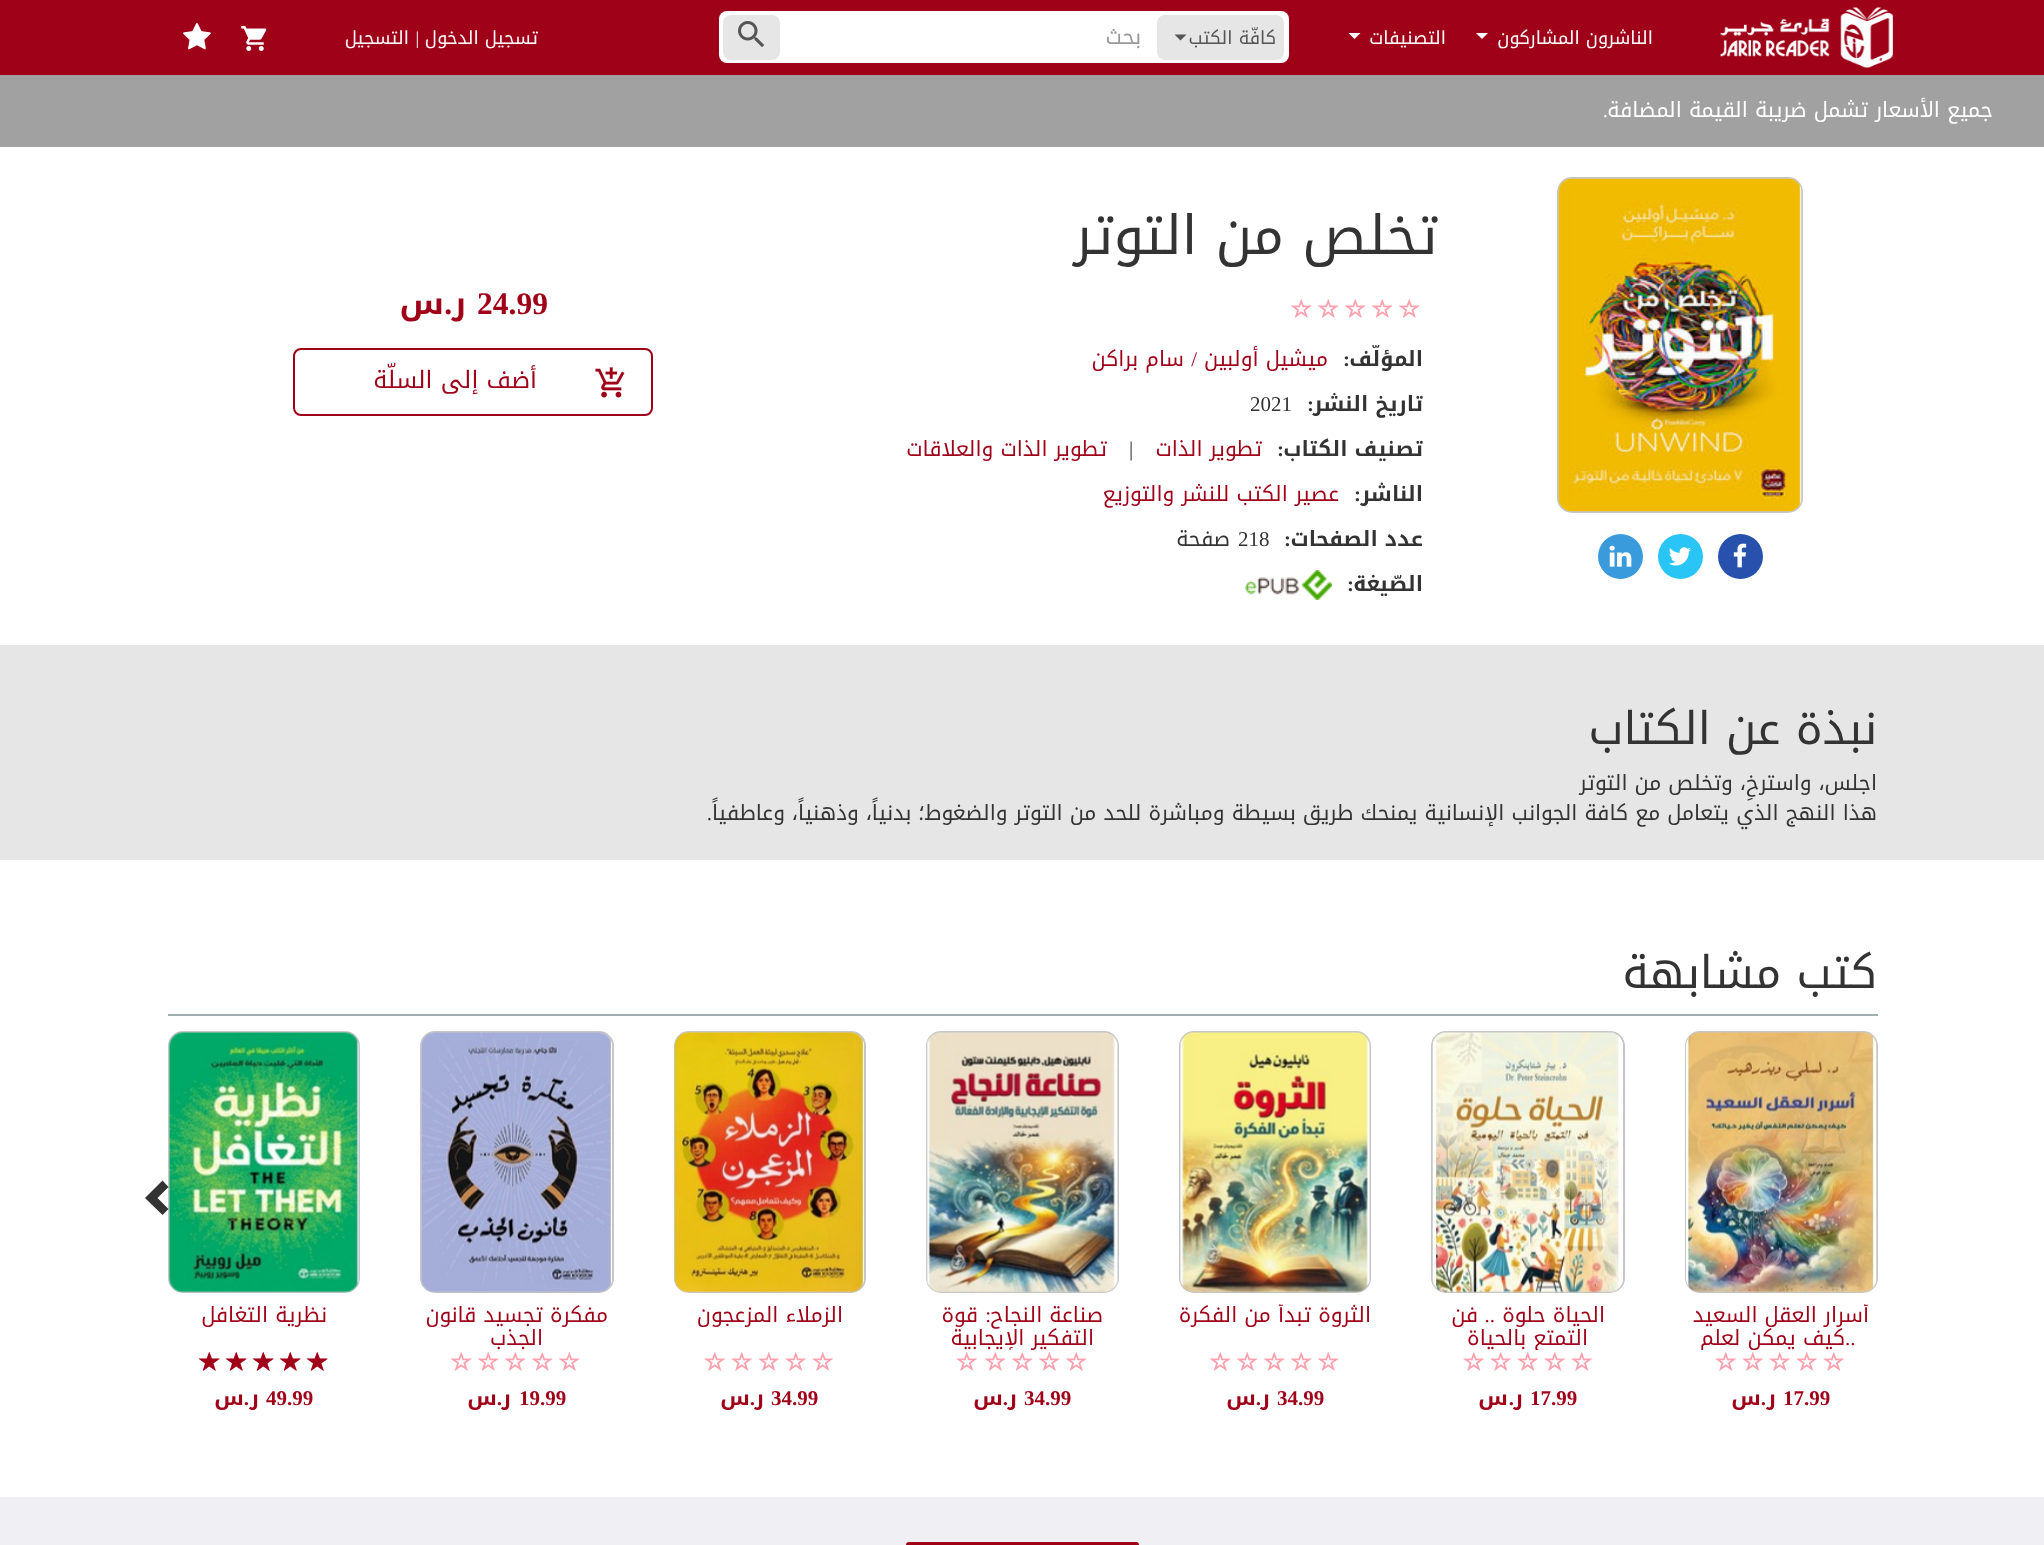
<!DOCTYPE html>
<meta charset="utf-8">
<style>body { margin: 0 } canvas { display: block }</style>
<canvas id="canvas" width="2044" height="1545"></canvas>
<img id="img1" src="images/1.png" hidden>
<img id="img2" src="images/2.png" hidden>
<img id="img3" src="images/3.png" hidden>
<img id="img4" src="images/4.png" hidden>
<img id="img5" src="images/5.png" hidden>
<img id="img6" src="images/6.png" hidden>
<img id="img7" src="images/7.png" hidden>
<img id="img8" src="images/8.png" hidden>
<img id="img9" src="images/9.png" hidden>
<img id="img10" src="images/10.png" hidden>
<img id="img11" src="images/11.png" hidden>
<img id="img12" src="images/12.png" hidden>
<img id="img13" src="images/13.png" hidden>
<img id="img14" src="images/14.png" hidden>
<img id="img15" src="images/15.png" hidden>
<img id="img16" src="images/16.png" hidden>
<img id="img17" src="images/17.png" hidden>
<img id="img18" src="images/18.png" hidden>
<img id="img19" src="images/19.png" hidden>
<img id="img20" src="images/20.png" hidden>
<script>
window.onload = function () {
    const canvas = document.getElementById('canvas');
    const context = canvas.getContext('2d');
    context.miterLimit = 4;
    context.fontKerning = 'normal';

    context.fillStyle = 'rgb(255, 255, 255)';
    context.fillRect(0, 0, 2044, 1545);
    context.fillStyle = 'rgb(158, 1, 24)';
    context.fillRect(0, 0, 2044, 75);
    context.drawImage(document.getElementById('img1'), 1720, 7, 173, 61);
    context.fillStyle = 'rgb(255, 255, 255)';
    context.beginPath();
    context.moveTo(1476, 33);
    context.lineTo(1488, 33);
    context.lineTo(1482, 39);
    context.closePath();
    context.fill();
    context.beginPath();
    context.moveTo(1348.5, 33);
    context.lineTo(1360.5, 33);
    context.lineTo(1354.5, 39);
    context.closePath();
    context.fill();
    context.beginPath();
    context.roundRect(719, 11, 570, 52, 8);
    context.fill();
    context.fillStyle = 'rgb(230, 230, 230)';
    context.beginPath();
    context.roundRect(1157, 15, 127, 45, 8);
    context.fill();
    context.fillStyle = 'rgb(85, 85, 85)';
    context.beginPath();
    context.moveTo(1174.5, 34.5);
    context.lineTo(1186.5, 34.5);
    context.lineTo(1180.5, 40.5);
    context.closePath();
    context.fill();
    context.fillStyle = 'rgb(230, 230, 230)';
    context.beginPath();
    context.roundRect(723, 15, 57, 45, 8);
    context.fill();
    context.drawImage(document.getElementById('img2'), 738, 21, 27, 27);
    context.drawImage(document.getElementById('img3'), 241, 26, 26, 25);
    context.drawImage(document.getElementById('img4'), 183, 22, 28, 28);
    context.fillStyle = 'rgb(161, 161, 161)';
    context.fillRect(0, 75, 2044, 72);
    context.beginPath();
    context.roundRect(1558, 178, 244, 334, 14);
    context.strokeStyle = 'rgb(198, 198, 198)';
    context.lineWidth = 2;
    context.stroke();
    context.drawImage(document.getElementById('img5'), 1558, 178, 244, 334);
    context.fillStyle = 'rgb(40, 80, 173)';
    context.beginPath();
    context.arc(1740.5, 556.5, 22.5, 0, 2 * Math.PI);
    context.fill();
    context.drawImage(document.getElementById('img6'), 1733, 543, 14, 25);
    context.fillStyle = 'rgb(41, 197, 246)';
    context.beginPath();
    context.arc(1680.5, 556.5, 22.5, 0, 2 * Math.PI);
    context.fill();
    context.drawImage(document.getElementById('img7'), 1668, 547, 23, 19);
    context.fillStyle = 'rgb(58, 155, 220)';
    context.beginPath();
    context.arc(1620.5, 556.5, 22.5, 0, 2 * Math.PI);
    context.fill();
    context.drawImage(document.getElementById('img8'), 1609, 545, 23, 22);
    context.drawImage(document.getElementById('img9'), 1398, 299, 22, 19);
    context.drawImage(document.getElementById('img9'), 1371, 299, 22, 19);
    context.drawImage(document.getElementById('img9'), 1344, 299, 22, 19);
    context.drawImage(document.getElementById('img9'), 1317, 299, 22, 19);
    context.drawImage(document.getElementById('img9'), 1290, 299, 22, 19);
    context.drawImage(document.getElementById('img10'), 1245, 570, 87, 30);
    context.beginPath();
    context.roundRect(294, 349, 358, 66, 7);
    context.strokeStyle = 'rgb(158, 1, 24)';
    context.stroke();
    context.drawImage(document.getElementById('img11'), 595, 367, 30, 31);
    context.fillStyle = 'rgb(230, 230, 230)';
    context.fillRect(0, 645, 2044, 215);
    context.fillStyle = 'rgb(160, 176, 176)';
    context.fillRect(168, 1014, 1710, 2);
    context.beginPath();
    context.roundRect(169, 1032, 190, 260, 14);
    context.strokeStyle = 'rgb(198, 198, 198)';
    context.stroke();
    context.fillStyle = 'rgb(51, 51, 51)';
    context.beginPath();
    context.moveTo(168.5, 1187);
    context.lineTo(157.5, 1198);
    context.lineTo(168.5, 1209);
    context.lineTo(162.5, 1215);
    context.lineTo(145, 1198);
    context.lineTo(162.5, 1180.5);
    context.closePath();
    context.fill();
    context.beginPath();
    context.roundRect(1686, 1032, 191, 260, 14);
    context.stroke();
    context.drawImage(document.getElementById('img12'), 1686, 1032, 191, 261);
    context.drawImage(document.getElementById('img13'), 1823, 1352, 21, 19);
    context.drawImage(document.getElementById('img13'), 1796, 1352, 21, 19);
    context.drawImage(document.getElementById('img13'), 1769, 1352, 21, 19);
    context.drawImage(document.getElementById('img13'), 1742, 1352, 21, 19);
    context.drawImage(document.getElementById('img13'), 1715, 1352, 21, 19);
    context.beginPath();
    context.roundRect(1432, 1032, 192, 260, 14);
    context.stroke();
    context.drawImage(document.getElementById('img14'), 1432, 1032, 191, 261);
    context.drawImage(document.getElementById('img13'), 1571, 1352, 21, 19);
    context.drawImage(document.getElementById('img13'), 1544, 1352, 21, 19);
    context.drawImage(document.getElementById('img13'), 1517, 1352, 21, 19);
    context.drawImage(document.getElementById('img13'), 1490, 1352, 21, 19);
    context.drawImage(document.getElementById('img13'), 1463, 1352, 21, 19);
    context.beginPath();
    context.roundRect(1180, 1032, 190, 260, 14);
    context.stroke();
    context.drawImage(document.getElementById('img15'), 1180, 1032, 190, 261);
    context.drawImage(document.getElementById('img9'), 1317, 1352, 22, 19);
    context.drawImage(document.getElementById('img9'), 1290, 1352, 22, 19);
    context.drawImage(document.getElementById('img9'), 1263, 1352, 22, 19);
    context.drawImage(document.getElementById('img9'), 1236, 1352, 22, 19);
    context.drawImage(document.getElementById('img9'), 1209, 1352, 22, 19);
    context.beginPath();
    context.roundRect(927, 1032, 191, 260, 14);
    context.stroke();
    context.drawImage(document.getElementById('img16'), 926, 1032, 192, 261);
    context.drawImage(document.getElementById('img9'), 1065, 1352, 22, 19);
    context.drawImage(document.getElementById('img9'), 1038, 1352, 22, 19);
    context.drawImage(document.getElementById('img9'), 1011, 1352, 22, 19);
    context.drawImage(document.getElementById('img9'), 984, 1352, 22, 19);
    context.drawImage(document.getElementById('img13'), 956, 1352, 21, 19);
    context.beginPath();
    context.roundRect(675, 1032, 190, 260, 14);
    context.stroke();
    context.drawImage(document.getElementById('img17'), 675, 1032, 189, 261);
    context.drawImage(document.getElementById('img13'), 812, 1352, 21, 19);
    context.drawImage(document.getElementById('img13'), 785, 1352, 21, 19);
    context.drawImage(document.getElementById('img13'), 758, 1352, 21, 19);
    context.drawImage(document.getElementById('img13'), 731, 1352, 21, 19);
    context.drawImage(document.getElementById('img13'), 704, 1352, 21, 19);
    context.beginPath();
    context.roundRect(421, 1032, 192, 260, 14);
    context.stroke();
    context.drawImage(document.getElementById('img18'), 421, 1032, 191, 261);
    context.drawImage(document.getElementById('img9'), 558, 1352, 22, 19);
    context.drawImage(document.getElementById('img9'), 531, 1352, 22, 19);
    context.drawImage(document.getElementById('img9'), 504, 1352, 22, 19);
    context.drawImage(document.getElementById('img9'), 477, 1352, 22, 19);
    context.drawImage(document.getElementById('img9'), 450, 1352, 22, 19);
    context.drawImage(document.getElementById('img19'), 169, 1032, 190, 261);
    context.drawImage(document.getElementById('img9'), 306, 1352, 22, 19);
    context.drawImage(document.getElementById('img9'), 279, 1352, 22, 19);
    context.drawImage(document.getElementById('img9'), 252, 1352, 22, 19);
    context.drawImage(document.getElementById('img9'), 225, 1352, 22, 19);
    context.drawImage(document.getElementById('img9'), 198, 1352, 22, 19);
    context.drawImage(document.getElementById('img20'), 306, 1352, 22, 19);
    context.drawImage(document.getElementById('img20'), 279, 1352, 22, 19);
    context.drawImage(document.getElementById('img20'), 252, 1352, 22, 19);
    context.drawImage(document.getElementById('img20'), 225, 1352, 22, 19);
    context.drawImage(document.getElementById('img20'), 198, 1352, 22, 19);
    context.fillStyle = 'rgb(239, 239, 244)';
    context.fillRect(0, 1497, 2044, 48);
    context.fillStyle = 'rgb(158, 1, 24)';
    context.beginPath();
    context.roundRect(906, 1542, 233, 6, 3);
    context.fill();
    context.direction = 'rtl';
    context.font = '18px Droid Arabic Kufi';
    context.fillStyle = 'rgb(255, 255, 255)';
    context.fillText('الناشرون المشاركون', 1653, 44);
    context.fillText('التصنيفات', 1446, 44);
    context.fillStyle = 'rgb(85, 85, 85)';
    context.fillText('كافّة الكتب', 1276, 44);
    context.font = '21px Droid Arabic Kufi';
    context.fillStyle = 'rgb(153, 153, 153)';
    context.fillText('بحث', 1141, 44);
    context.font = '18px Droid Arabic Kufi';
    context.fillStyle = 'rgb(255, 255, 255)';
    context.fillText('تسجيل الدخول', 538, 44);
    context.font = '18px Liberation Serif';
    context.fillText('|', 419, 44);
    context.font = '18px Droid Arabic Kufi';
    context.fillText('التسجيل', 409, 44);
    context.font = '21px Droid Arabic Kufi';
    context.fillText('جميع الأسعار تشمل ضريبة القيمة المضافة', 1993, 117);
    context.font = '21px Liberation Serif';
    context.fillText('.', 1608, 117);
    context.font = '54px Droid Arabic Kufi';
    context.fillStyle = 'rgb(51, 51, 51)';
    context.fillText('تخلص من التوتر', 1438, 254);
    context.save();
    context.beginPath();
    context.rect(840, 345, 584, 30);
    context.clip();
    context.font = 'bold 21px Droid Arabic Kufi';
    context.fillText('المؤلّف', 1423, 366);
    context.restore();
    context.font = 'bold 21px Liberation Serif';
    context.fillText(':', 1350, 366);
    context.font = '21px Droid Arabic Kufi';
    context.fillStyle = 'rgb(158, 1, 24)';
    context.fillText('ميشيل أولبين', 1328, 366);
    context.font = '21px Liberation Serif';
    context.fillText('/', 1197, 366);
    context.font = '21px Droid Arabic Kufi';
    context.fillText('سام براكن', 1184, 366);
    context.font = 'bold 21px Droid Arabic Kufi';
    context.fillStyle = 'rgb(51, 51, 51)';
    context.fillText('تاريخ النشر', 1423, 411);
    context.font = 'bold 21px Liberation Serif';
    context.fillText(':', 1314, 411);
    context.direction = 'ltr';
    context.font = '21px Liberation Serif';
    context.fillText('2021', 1250, 411);
    context.direction = 'rtl';
    context.font = 'bold 21px Droid Arabic Kufi';
    context.fillText('تصنيف الكتاب', 1423, 456);
    context.font = 'bold 21px Liberation Serif';
    context.fillText(':', 1284, 456);
    context.font = '21px Droid Arabic Kufi';
    context.fillStyle = 'rgb(158, 1, 24)';
    context.fillText('تطوير الذات', 1262, 456);
    context.direction = 'ltr';
    context.font = '21px Liberation Serif';
    context.fillStyle = 'rgb(51, 51, 51)';
    context.fillText('|', 1129, 456);
    context.direction = 'rtl';
    context.font = '21px Droid Arabic Kufi';
    context.fillStyle = 'rgb(158, 1, 24)';
    context.fillText('تطوير الذات والعلاقات', 1107, 456);
    context.font = 'bold 21px Droid Arabic Kufi';
    context.fillStyle = 'rgb(51, 51, 51)';
    context.fillText('الناشر', 1423, 501);
    context.font = 'bold 21px Liberation Serif';
    context.fillText(':', 1361, 501);
    context.font = '21px Droid Arabic Kufi';
    context.fillStyle = 'rgb(158, 1, 24)';
    context.fillText('عصير الكتب للنشر والتوزيع', 1339, 501);
    context.font = 'bold 21px Droid Arabic Kufi';
    context.fillStyle = 'rgb(51, 51, 51)';
    context.fillText('عدد الصفحات', 1423, 546);
    context.font = 'bold 21px Liberation Serif';
    context.fillText(':', 1291, 546);
    context.direction = 'ltr';
    context.font = '21px Liberation Serif';
    context.fillText('218', 1238, 546);
    context.direction = 'rtl';
    context.font = '21px Droid Arabic Kufi';
    context.fillText('صفحة', 1230, 546);
    context.font = 'bold 21px Droid Arabic Kufi';
    context.fillText('الصّيغة', 1423, 591);
    context.font = 'bold 21px Liberation Serif';
    context.fillText(':', 1354, 591);
    context.direction = 'ltr';
    context.font = 'bold 31.5px Liberation Serif';
    context.fillStyle = 'rgb(158, 1, 24)';
    context.fillText('24.99', 477, 314);
    context.direction = 'rtl';
    context.font = 'bold 31.5px Droid Arabic Kufi';
    context.fillText('ر', 466, 314);
    context.font = 'bold 31.5px Liberation Serif';
    context.fillText('.', 452, 314);
    context.font = 'bold 31.5px Droid Arabic Kufi';
    context.fillText('س', 444, 314);
    context.font = '24px Droid Arabic Kufi';
    context.fillText('أضف إلى السلّة', 537, 388);
    context.font = '45px Droid Arabic Kufi';
    context.fillStyle = 'rgb(51, 51, 51)';
    context.fillText('نبذة عن الكتاب', 1877, 744);
    context.font = '21px Droid Arabic Kufi';
    context.fillText('اجلس، واسترخِ، وتخلص من التوتر', 1877, 790);
    context.fillText('هذا النهج الذي يتعامل مع كافة الجوانب الإنسانية يمنحك طريق بسيطة ومباشرة للحد من التوتر والضغوط؛ بدنياً، وذهنياً، وعاطفياً', 1877, 820);
    context.font = '21px Liberation Serif';
    context.fillText('.', 712, 820);
    context.font = '45px Droid Arabic Kufi';
    context.fillText('كتب مشابهة', 1877, 988);
    context.save();
    context.beginPath();
    context.rect(1685, 1304, 193, 46);
    context.clip();
    context.font = '21px Droid Arabic Kufi';
    context.fillStyle = 'rgb(158, 1, 24)';
    context.fillText('أسرار العقل السعيد', 1869, 1322);
    context.restore();
    context.direction = 'ltr';
    context.font = '21px Liberation Serif';
    context.fillStyle = 'rgb(158, 1, 24)';
    context.fillText('..', 1845, 1345);
    context.save();
    context.beginPath();
    context.rect(1685, 1304, 193, 46);
    context.clip();
    context.direction = 'rtl';
    context.font = '21px Droid Arabic Kufi';
    context.fillText('كيف يمكن لعلم', 1845, 1345);
    context.restore();
    context.font = 'bold 21px Liberation Serif';
    context.fillText('17.99', 1783, 1405);
    context.direction = 'rtl';
    context.fillText('.', 1766, 1405);
    context.font = 'bold 21px Droid Arabic Kufi';
    context.fillText('ر', 1776, 1405);
    context.fillText('س', 1761, 1405);
    context.font = '21px Droid Arabic Kufi';
    context.fillText('الحياة حلوة', 1605, 1322);
    context.font = '21px Liberation Serif';
    context.fillText('..', 1495, 1322);
    context.font = '21px Droid Arabic Kufi';
    context.fillText('فن', 1478, 1322);
    context.save();
    context.beginPath();
    context.rect(1431, 1304, 194, 46);
    context.clip();
    context.fillText('التمتع بالحياة', 1588, 1345);
    context.restore();
    context.direction = 'ltr';
    context.font = 'bold 21px Liberation Serif';
    context.fillText('17.99', 1530, 1405);
    context.direction = 'rtl';
    context.fillText('.', 1514, 1405);
    context.font = 'bold 21px Droid Arabic Kufi';
    context.fillText('ر', 1523, 1405);
    context.fillText('س', 1508, 1405);
    context.save();
    context.beginPath();
    context.rect(1179, 1304, 192, 46);
    context.clip();
    context.font = '21px Droid Arabic Kufi';
    context.fillText('الثروة تبدأ من الفكرة', 1371, 1322);
    context.restore();
    context.direction = 'ltr';
    context.font = 'bold 21px Liberation Serif';
    context.fillText('34.99', 1277, 1405);
    context.direction = 'rtl';
    context.fillText('.', 1261, 1405);
    context.font = 'bold 21px Droid Arabic Kufi';
    context.fillText('ر', 1270, 1405);
    context.fillText('س', 1256, 1405);
    context.font = '21px Droid Arabic Kufi';
    context.fillText('صناعة النجاح', 1103, 1322);
    context.font = '21px Liberation Serif';
    context.fillText(':', 991, 1322);
    context.font = '21px Droid Arabic Kufi';
    context.fillText('قوة', 978, 1322);
    context.save();
    context.beginPath();
    context.rect(926, 1304, 193, 46);
    context.clip();
    context.fillText('التفكير الإيجابية', 1094, 1345);
    context.restore();
    context.direction = 'ltr';
    context.font = 'bold 21px Liberation Serif';
    context.fillText('34.99', 1024, 1405);
    context.direction = 'rtl';
    context.font = 'bold 21px Droid Arabic Kufi';
    context.fillText('ر', 1017, 1405);
    context.font = 'bold 21px Liberation Serif';
    context.fillText('.', 1008, 1405);
    context.font = 'bold 21px Droid Arabic Kufi';
    context.fillText('س', 1003, 1405);
    context.font = '21px Droid Arabic Kufi';
    context.fillText('الزملاء المزعجون', 843, 1322);
    context.direction = 'ltr';
    context.font = 'bold 21px Liberation Serif';
    context.fillText('34.99', 771, 1405);
    context.direction = 'rtl';
    context.fillText('.', 755, 1405);
    context.font = 'bold 21px Droid Arabic Kufi';
    context.fillText('ر', 764, 1405);
    context.fillText('س', 750, 1405);
    context.font = '21px Droid Arabic Kufi';
    context.fillText('مفكرة تجسيد قانون', 608, 1322);
    context.fillText('الجذب', 543, 1345);
    context.direction = 'ltr';
    context.font = 'bold 21px Liberation Serif';
    context.fillText('19.99', 519, 1405);
    context.direction = 'rtl';
    context.fillText('.', 502, 1405);
    context.font = 'bold 21px Droid Arabic Kufi';
    context.fillText('ر', 511, 1405);
    context.fillText('س', 497, 1405);
    context.font = '21px Droid Arabic Kufi';
    context.fillText('نظرية التغافل', 327, 1322);
    context.direction = 'ltr';
    context.font = 'bold 21px Liberation Serif';
    context.fillText('49.99', 266, 1405);
    context.direction = 'rtl';
    context.fillText('.', 249, 1405);
    context.font = 'bold 21px Droid Arabic Kufi';
    context.fillText('ر', 259, 1405);
    context.fillText('س', 244, 1405);
};
</script>
